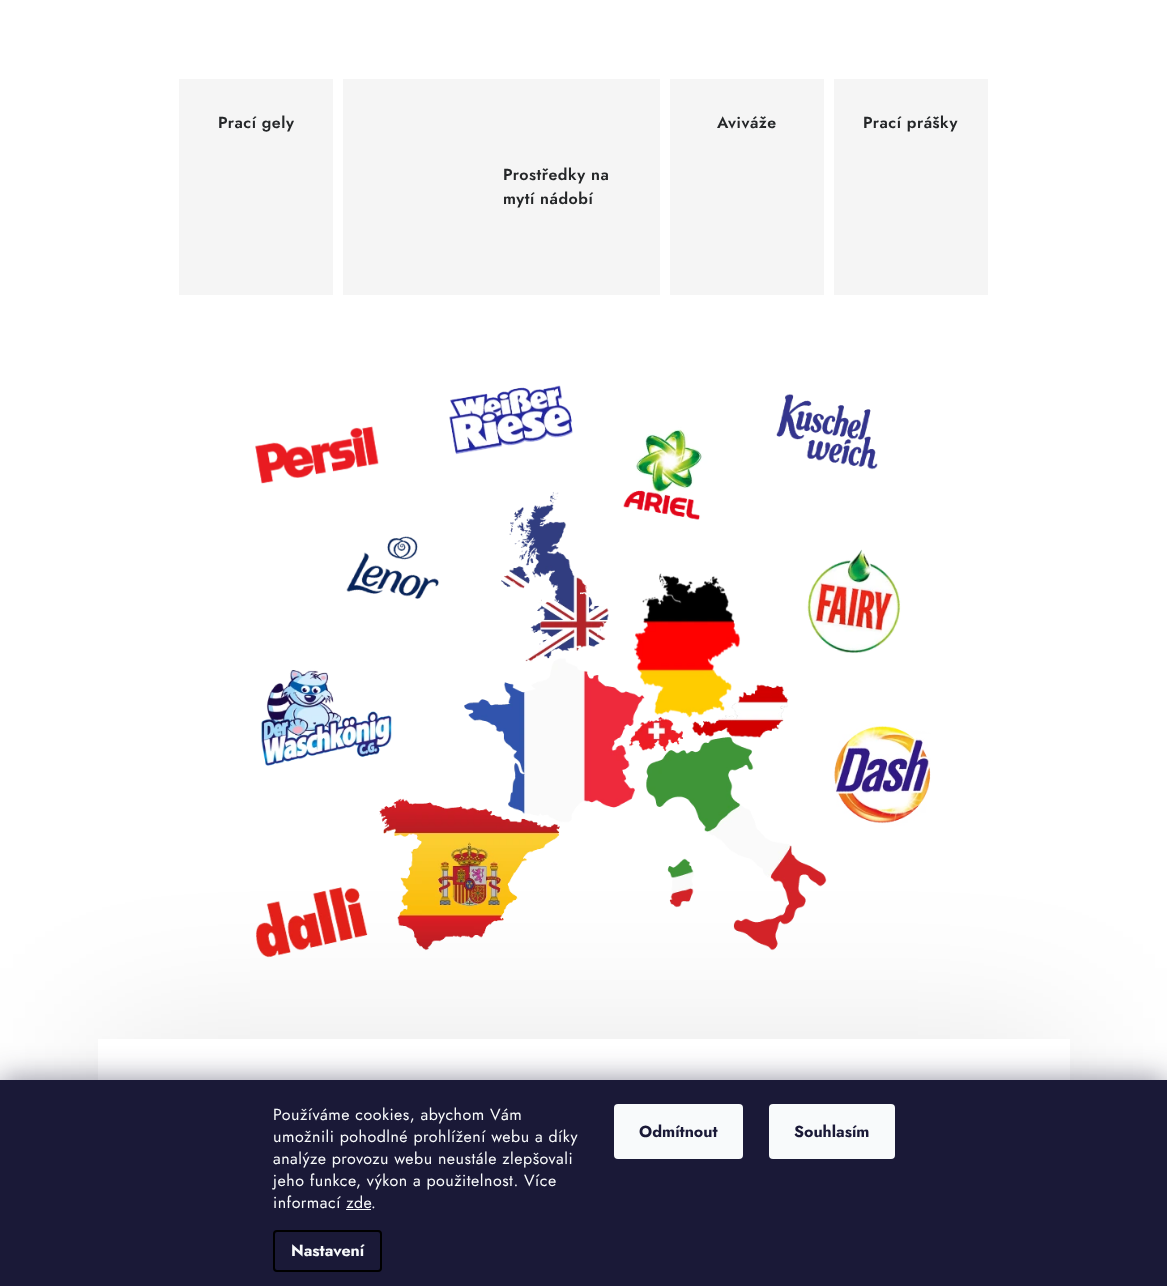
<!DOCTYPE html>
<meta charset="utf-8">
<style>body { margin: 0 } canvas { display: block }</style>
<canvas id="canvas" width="1167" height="1286"></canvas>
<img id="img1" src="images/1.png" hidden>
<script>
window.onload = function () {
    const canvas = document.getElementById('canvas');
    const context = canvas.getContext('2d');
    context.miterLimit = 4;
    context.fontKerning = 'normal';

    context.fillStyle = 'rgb(255, 255, 255)';
    context.fillRect(0, 0, 1167, 1286);
    context.fillStyle = 'rgb(245, 245, 245)';
    context.fillRect(179, 79, 154, 216);
    context.fillRect(670, 79, 154, 216);
    context.fillRect(834, 79, 154, 216);
    context.fillRect(343, 79, 317, 216);
    context.save();
    context.beginPath();
    context.moveTo(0, 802);
    context.lineTo(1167, 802);
    context.lineTo(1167, 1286);
    context.lineTo(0, 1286);
    context.closePath();
    context.moveTo(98, 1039);
    context.lineTo(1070, 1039);
    context.lineTo(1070, 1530);
    context.lineTo(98, 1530);
    context.closePath();
    context.clip('evenodd');
    context.fillStyle = 'rgba(0, 0, 0, 0.1)';
    context.filter = 'blur(80px)';
    context.beginPath();
    context.rect(98, 1043, 972, 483);
    context.fill();
    context.filter = 'none';
    context.restore();
    context.drawImage(document.getElementById('img1'), 255, 385, 676, 573);
    context.fillStyle = 'rgba(27, 25, 57, 0.5)';
    context.filter = 'blur(15px)';
    context.beginPath();
    context.rect(0, 1080, 1167, 206);
    context.fill();
    context.filter = 'none';
    context.fillStyle = 'rgb(26, 25, 55)';
    context.fillRect(0, 1080, 1167, 206);
    context.fillStyle = 'rgb(248, 250, 251)';
    context.fillRect(346, 1209, 25, 1);
    context.beginPath();
    context.roundRect(274, 1231, 107, 40, 3);
    context.strokeStyle = 'rgb(0, 0, 0)';
    context.lineWidth = 2;
    context.stroke();
    context.beginPath();
    context.roundRect(614, 1104, 129, 55, 4);
    context.fill();
    context.beginPath();
    context.roundRect(769, 1104, 126, 55, 4);
    context.fill();
    context.letterSpacing = '0.5px';
    context.font = '600 16px Jost';
    context.fillStyle = 'rgb(37, 39, 41)';
    context.fillText('Prací gely', 218, 128);
    context.fillText('Aviváže', 717, 128);
    context.fillText('Prací prášky', 863, 128);
    context.fillText('Prostředky na', 503, 180);
    context.fillText('mytí nádobí', 503, 204);
    context.font = '16px Jost';
    context.fillStyle = 'rgb(248, 250, 251)';
    context.fillText('Používáme cookies, abychom Vám', 273, 1120);
    context.fillText('umožnili pohodlné prohlížení webu a díky', 273, 1142);
    context.fillText('analýze provozu webu neustále zlepšovali', 273, 1164);
    context.fillText('jeho funkce, výkon a použitelnost. Více', 273, 1186);
    context.fillText('informací zde', 273, 1208);
    context.fillText('.', 371, 1208);
    context.letterSpacing = '0px';
    context.font = 'bold 16px Jost';
    context.fillText('Nastavení', 291, 1256);
    context.fillStyle = 'rgb(26, 25, 55)';
    context.fillText('Odmítnout', 639, 1137);
    context.fillText('Souhlasím', 794, 1137);
};
</script>
